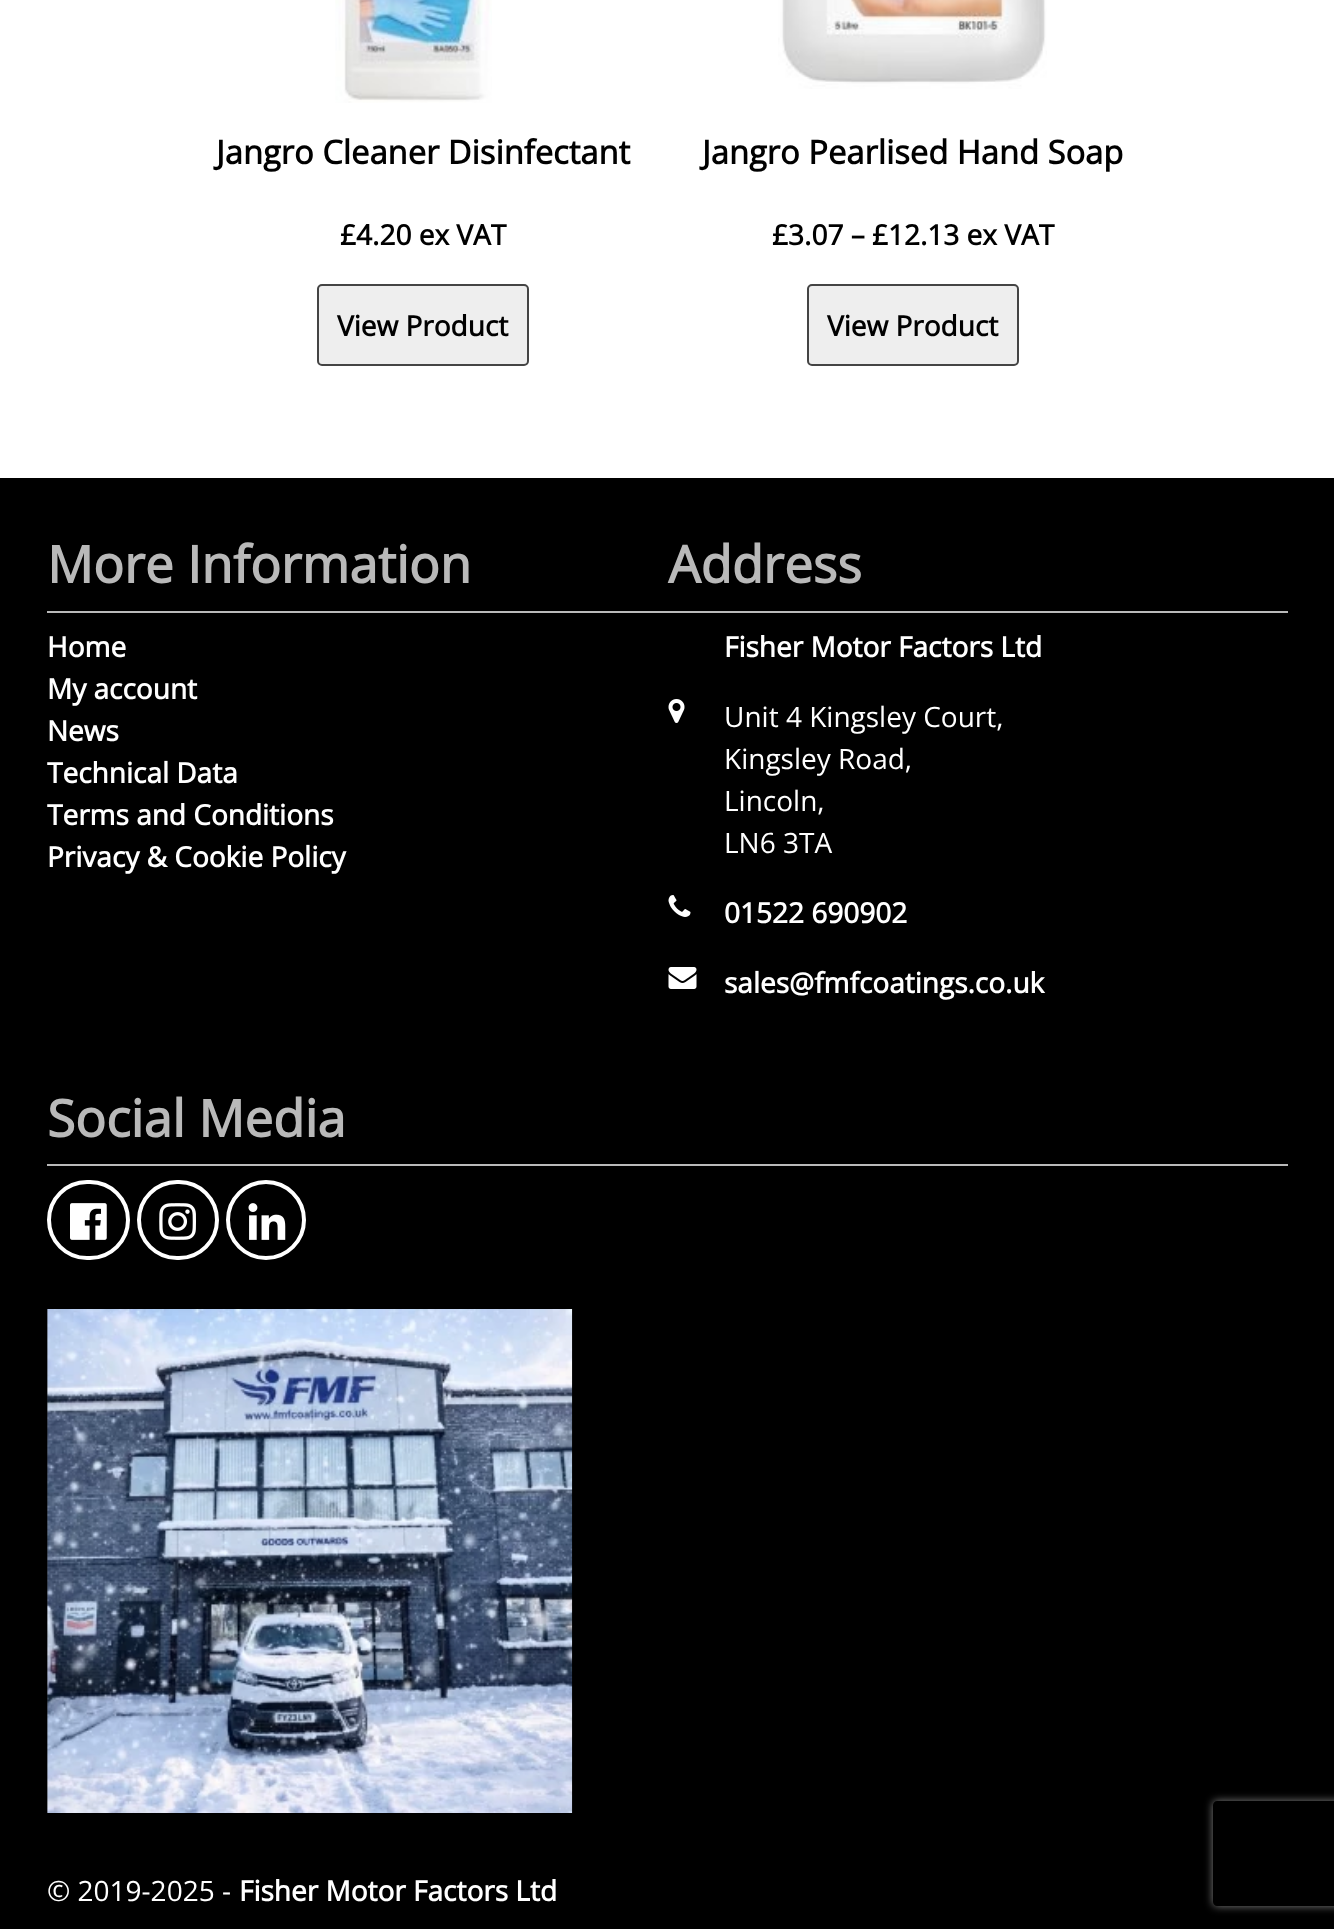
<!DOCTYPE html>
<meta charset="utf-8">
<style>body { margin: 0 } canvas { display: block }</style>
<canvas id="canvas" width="1334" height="1929"></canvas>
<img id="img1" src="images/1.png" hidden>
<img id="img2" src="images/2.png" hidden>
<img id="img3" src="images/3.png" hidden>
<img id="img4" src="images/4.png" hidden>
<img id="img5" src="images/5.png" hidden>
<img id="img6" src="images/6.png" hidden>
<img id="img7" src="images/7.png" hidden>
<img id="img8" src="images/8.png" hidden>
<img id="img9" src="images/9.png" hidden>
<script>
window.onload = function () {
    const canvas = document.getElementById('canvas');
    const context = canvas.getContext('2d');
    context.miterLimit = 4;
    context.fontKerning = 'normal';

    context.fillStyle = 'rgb(255, 255, 255)';
    context.fillRect(0, 0, 1334, 1929);
    context.drawImage(document.getElementById('img1'), 335, 0, 157, 103);
    context.fillStyle = 'rgb(238, 238, 238)';
    context.beginPath();
    context.roundRect(318, 285, 210, 80, 4);
    context.fill();
    context.strokeStyle = 'rgb(68, 68, 68)';
    context.lineWidth = 2;
    context.stroke();
    context.drawImage(document.getElementById('img2'), 778, 0, 269, 89);
    context.beginPath();
    context.roundRect(808, 285, 210, 80, 4);
    context.fill();
    context.stroke();
    context.fillStyle = 'rgb(0, 0, 0)';
    context.fillRect(0, 478, 1334, 1451);
    context.fillStyle = 'rgb(185, 185, 185)';
    context.fillRect(47, 611, 1241, 2);
    context.drawImage(document.getElementById('img3'), 668, 699, 17, 24);
    context.drawImage(document.getElementById('img4'), 668, 895, 23, 22);
    context.drawImage(document.getElementById('img5'), 668, 967, 29, 22);
    context.fillRect(47, 1164, 1241, 2);
    context.beginPath();
    context.roundRect(49, 1182, 79, 76, 38);
    context.strokeStyle = 'rgb(255, 255, 255)';
    context.lineWidth = 4;
    context.stroke();
    context.drawImage(document.getElementById('img6'), 70, 1203, 37, 37);
    context.beginPath();
    context.roundRect(139, 1182, 78, 76, 38);
    context.stroke();
    context.drawImage(document.getElementById('img7'), 159, 1203, 37, 37);
    context.beginPath();
    context.arc(266, 1220, 38, 0, 2 * Math.PI);
    context.stroke();
    context.drawImage(document.getElementById('img8'), 248, 1203, 38, 37);
    context.fillStyle = 'rgb(34, 34, 34)';
    context.fillRect(47, 1309, 1, 504);
    context.drawImage(document.getElementById('img9'), 47, 1309, 526, 504);
    context.save();
    context.beginPath();
    context.moveTo(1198, 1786);
    context.lineTo(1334, 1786);
    context.lineTo(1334, 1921);
    context.lineTo(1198, 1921);
    context.closePath();
    context.moveTo(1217, 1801);
    context.lineTo(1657, 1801);
    context.bezierCurveTo(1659, 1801, 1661, 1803, 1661, 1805);
    context.lineTo(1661, 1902);
    context.bezierCurveTo(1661, 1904, 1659, 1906, 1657, 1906);
    context.lineTo(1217, 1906);
    context.bezierCurveTo(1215, 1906, 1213, 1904, 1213, 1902);
    context.lineTo(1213, 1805);
    context.bezierCurveTo(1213, 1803, 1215, 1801, 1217, 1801);
    context.closePath();
    context.clip('evenodd');
    context.fillStyle = 'rgb(128, 128, 128)';
    context.filter = 'blur(4.5px)';
    context.beginPath();
    context.roundRect(1213, 1801, 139, 105, 4);
    context.fill();
    context.filter = 'none';
    context.restore();
    context.font = 'bold 32.7px Open Sans';
    context.fillStyle = 'rgb(0, 0, 0)';
    context.fillText('Jangro Cleaner Disinfectant', 216, 164);
    context.font = 'bold 28px Open Sans';
    context.fillText('£4.20 ex VAT', 340, 245);
    context.fillText('View Product', 337, 336);
    context.font = 'bold 32.7px Open Sans';
    context.fillText('Jangro Pearlised Hand Soap', 702, 164);
    context.font = 'bold 28px Open Sans';
    context.fillText('£3.07 – £12.13 ex VAT', 772, 245);
    context.fillText('View Product', 827, 336);
    context.font = 'bold 51.25px Open Sans';
    context.fillStyle = 'rgb(185, 185, 185)';
    context.fillText('More Information', 47, 583);
    context.font = 'bold 28px Open Sans';
    context.fillStyle = 'rgb(255, 255, 255)';
    context.fillText('Home', 47, 657);
    context.fillText('My account', 47, 699);
    context.fillText('News', 47, 741);
    context.fillText('Technical Data', 47, 783);
    context.fillText('Terms and Conditions', 47, 825);
    context.fillText('Privacy & Cookie Policy', 47, 867);
    context.font = 'bold 51.25px Open Sans';
    context.fillStyle = 'rgb(185, 185, 185)';
    context.fillText('Address', 668, 583);
    context.font = 'bold 28px Open Sans';
    context.fillStyle = 'rgb(255, 255, 255)';
    context.fillText('Fisher Motor Factors Ltd', 724, 657);
    context.font = '28px Open Sans';
    context.fillText('Unit 4 Kingsley Court,', 724, 727);
    context.fillText('Kingsley Road,', 724, 769);
    context.fillText('Lincoln,', 724, 811);
    context.fillText('LN6 3TA', 724, 853);
    context.font = 'bold 28px Open Sans';
    context.fillText('01522 690902', 724, 923);
    context.fillText('sales@fmfcoatings.co.uk', 724, 993);
    context.font = 'bold 51.25px Open Sans';
    context.fillStyle = 'rgb(185, 185, 185)';
    context.fillText('Social Media', 47, 1137);
    context.font = '28px Open Sans';
    context.fillStyle = 'rgb(255, 255, 255)';
    context.fillText('© 2019-2025 -', 47, 1901);
    context.font = 'bold 28px Open Sans';
    context.fillText('Fisher Motor Factors Ltd', 239, 1901);
};
</script>
